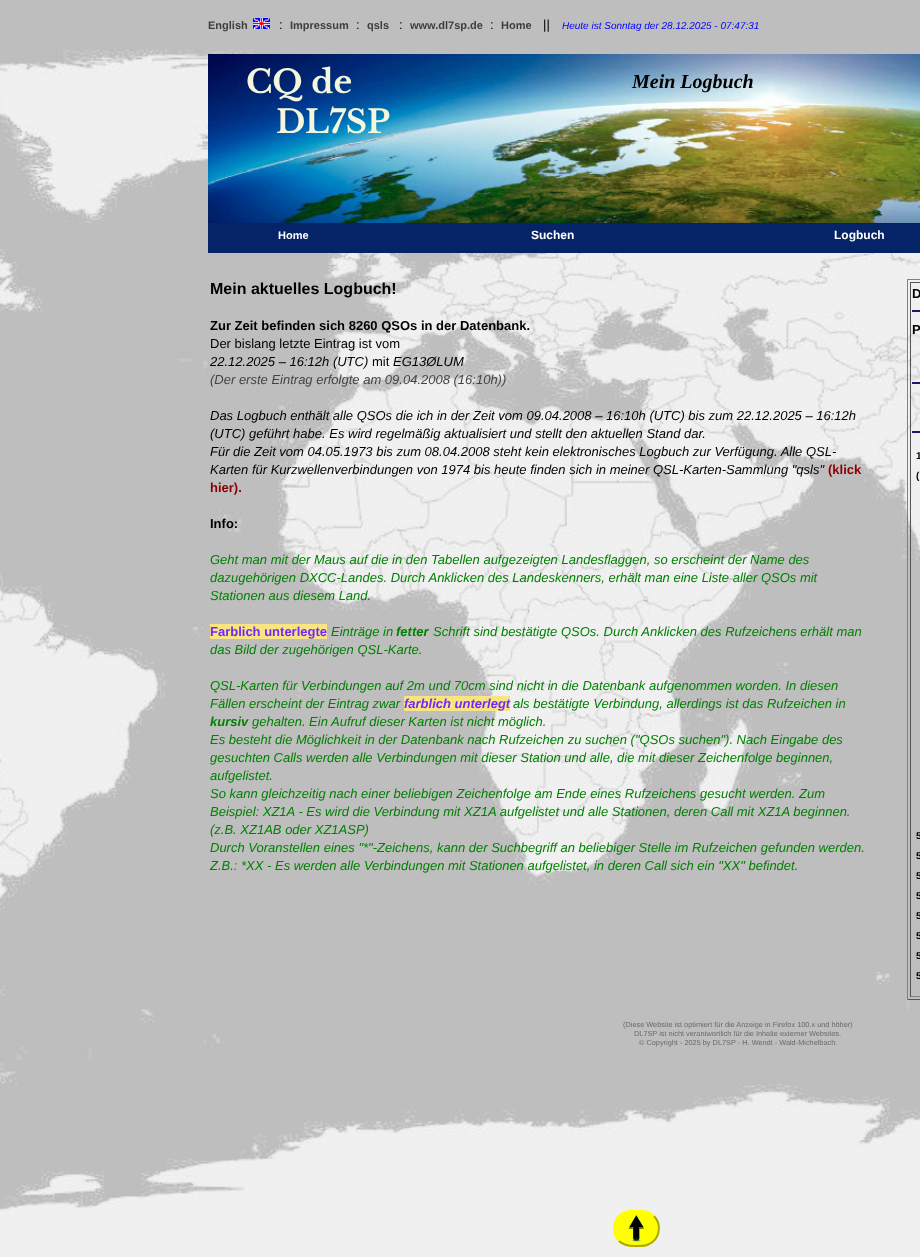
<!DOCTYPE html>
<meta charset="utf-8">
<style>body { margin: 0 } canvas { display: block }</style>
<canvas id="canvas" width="920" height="1257"></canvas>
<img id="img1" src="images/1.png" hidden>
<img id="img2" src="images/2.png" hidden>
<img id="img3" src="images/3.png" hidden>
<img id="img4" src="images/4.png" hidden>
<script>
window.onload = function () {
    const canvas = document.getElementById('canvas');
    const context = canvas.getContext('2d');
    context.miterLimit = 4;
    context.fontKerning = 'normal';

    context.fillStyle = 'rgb(255, 255, 255)';
    context.fillRect(0, 0, 920, 1257);
    context.drawImage(document.getElementById('img1'), 0, 0, 920, 1257);
    context.drawImage(document.getElementById('img2'), 253, 18, 17, 11);
    context.drawImage(document.getElementById('img3'), 208, 54, 712, 169);
    context.fillStyle = 'rgb(5, 35, 103)';
    context.fillRect(208, 223, 712, 30);
    context.fillStyle = 'rgb(249, 228, 131)';
    context.fillRect(210, 624, 117, 15);
    context.fillRect(404, 696, 106, 15);
    context.fillStyle = 'rgb(128, 128, 128)';
    context.fillRect(907, 279, 13, 1);
    context.fillStyle = 'rgb(85, 85, 85)';
    context.fillRect(907, 999, 13, 1);
    context.fillStyle = 'rgb(128, 128, 128)';
    context.fillRect(907, 279, 1, 721);
    context.fillStyle = 'rgb(85, 85, 85)';
    context.fillRect(910, 282, 10, 1);
    context.fillStyle = 'rgb(128, 128, 128)';
    context.fillRect(910, 996, 10, 1);
    context.fillStyle = 'rgb(85, 85, 85)';
    context.fillRect(910, 282, 1, 715);
    context.fillStyle = 'rgb(25, 25, 112)';
    context.fillRect(912, 310, 8, 2);
    context.fillRect(912, 382, 8, 2);
    context.fillRect(912, 431, 8, 2);
    context.fillStyle = 'rgb(255, 255, 0)';
    context.beginPath();
    context.roundRect(613, 1210, 47, 37, 18.5);
    context.fill();
    context.beginPath();
    context.moveTo(654, 1216);
    context.bezierCurveTo(662.5, 1225, 659.5, 1240, 648, 1244.5);
    context.bezierCurveTo(644, 1246.5, 639.5, 1246, 635, 1246);
    context.bezierCurveTo(629, 1246, 623.5, 1245.5, 619, 1241);
    context.strokeStyle = 'rgb(170, 170, 0)';
    context.lineWidth = 2;
    context.stroke();
    context.beginPath();
    context.moveTo(619, 1241);
    context.bezierCurveTo(610.5, 1232, 613.5, 1217, 625, 1212.5);
    context.bezierCurveTo(629, 1210.5, 633.5, 1211, 638, 1211);
    context.bezierCurveTo(644, 1211, 649.5, 1211.5, 654, 1216);
    context.strokeStyle = 'rgb(255, 255, 0)';
    context.stroke();
    context.drawImage(document.getElementById('img4'), 628, 1214, 16, 28);
    context.font = 'bold 11px Liberation Sans';
    context.fillStyle = 'rgb(62, 62, 62)';
    context.fillText('English', 208, 29);
    context.font = '13px Liberation Sans';
    context.fillStyle = 'rgb(0, 0, 0)';
    context.fillText(':', 279, 29);
    context.font = 'bold 11px Liberation Sans';
    context.fillStyle = 'rgb(62, 62, 62)';
    context.fillText('Impressum', 290, 29);
    context.font = '13px Liberation Sans';
    context.fillStyle = 'rgb(0, 0, 0)';
    context.fillText(':', 356, 29);
    context.font = 'bold 11px Liberation Sans';
    context.fillStyle = 'rgb(62, 62, 62)';
    context.fillText('qsls', 367, 29);
    context.font = '13px Liberation Sans';
    context.fillStyle = 'rgb(0, 0, 0)';
    context.fillText(':', 399, 29);
    context.font = 'bold 11px Liberation Sans';
    context.fillStyle = 'rgb(62, 62, 62)';
    context.fillText('www.dl7sp.de', 410, 29);
    context.font = '13px Liberation Sans';
    context.fillStyle = 'rgb(0, 0, 0)';
    context.fillText(':', 490, 29);
    context.font = 'bold 11px Liberation Sans';
    context.fillStyle = 'rgb(62, 62, 62)';
    context.fillText('Home', 501, 29);
    context.font = '13px Liberation Sans';
    context.fillStyle = 'rgb(0, 0, 0)';
    context.fillText('||', 543, 29);
    context.font = 'italic 10px Liberation Sans';
    context.fillStyle = 'rgb(0, 0, 255)';
    context.fillText('Heute ist Sonntag der 28.12.2025 - 07:47:31', 562, 29);
    context.font = 'bold 32px Libre Baskerville';
    context.fillStyle = 'rgb(244, 247, 219)';
    context.fillText('CQ de', 246, 93);
    context.fillText('DL7SP', 276, 133);
    context.font = 'italic bold 20px Liberation Serif';
    context.fillStyle = 'rgb(0, 0, 0)';
    context.fillText('Mein Logbuch', 632, 88);
    context.font = 'bold 11px Liberation Sans';
    context.fillStyle = 'rgb(255, 255, 255)';
    context.fillText('Home', 278, 239);
    context.font = 'bold 12px Liberation Sans';
    context.fillText('Suchen', 531, 239);
    context.fillText('Logbuch', 834, 239);
    context.font = 'bold 16px Liberation Sans';
    context.fillStyle = 'rgb(0, 0, 0)';
    context.fillText('Mein aktuelles Logbuch!', 210, 294);
    context.font = 'bold 13px Liberation Sans';
    context.fillText('Zur Zeit befinden sich 8260 QSOs in der Datenbank.', 210, 330);
    context.font = '13px Liberation Sans';
    context.fillText('Der bislang letzte Eintrag ist vom', 210, 348);
    context.font = 'italic 13px Liberation Sans';
    context.fillText('22.12.2025 – 16:12h (UTC)', 210, 366);
    context.font = '13px Liberation Sans';
    context.fillText('mit', 372, 366);
    context.font = 'italic 13px Liberation Sans';
    context.fillText('EG13ØLUM', 393, 366);
    context.fillStyle = 'rgb(68, 68, 72)';
    context.fillText('(Der erste Eintrag erfolgte am 09.04.2008 (16:10h))', 210, 384);
    context.fillStyle = 'rgb(0, 0, 0)';
    context.fillText('Das Logbuch enthält alle QSOs die ich in der Zeit vom 09.04.2008 – 16:10h (UTC) bis zum 22.12.2025 – 16:12h', 210, 420);
    context.fillText('(UTC) geführt habe. Es wird regelmäßig aktualisiert und stellt den aktuellen Stand dar.', 210, 438);
    context.fillText('Für die Zeit vom 04.05.1973 bis zum 08.04.2008 steht kein elektronisches Logbuch zur Verfügung. Alle QSL-', 210, 456);
    context.fillText('Karten für Kurzwellenverbindungen von 1974 bis heute finden sich in meiner QSL-Karten-Sammlung "qsls"', 210, 474);
    context.font = 'bold 13px Liberation Sans';
    context.fillStyle = 'rgb(139, 0, 0)';
    context.fillText('(klick', 828, 474);
    context.fillText('hier).', 210, 492);
    context.fillStyle = 'rgb(0, 0, 0)';
    context.fillText('Info:', 210, 528);
    context.font = 'italic 13px Liberation Sans';
    context.fillStyle = 'rgb(0, 128, 0)';
    context.fillText('Geht man mit der Maus auf die in den Tabellen aufgezeigten Landesflaggen, so erscheint der Name des', 210, 564);
    context.fillText('dazugehörigen DXCC-Landes. Durch Anklicken des Landeskenners, erhält man eine Liste aller QSOs mit', 210, 582);
    context.fillText('Stationen aus diesem Land.', 210, 600);
    context.font = 'bold 13px Liberation Sans';
    context.fillStyle = 'rgb(111, 41, 253)';
    context.fillText('Farblich unterlegte', 210, 636);
    context.font = 'italic 13px Liberation Sans';
    context.fillStyle = 'rgb(0, 128, 0)';
    context.fillText('Einträge in', 331, 636);
    context.font = 'italic bold 13px Liberation Sans';
    context.fillText('fetter', 396, 636);
    context.font = 'italic 13px Liberation Sans';
    context.fillText('Schrift sind bestätigte QSOs. Durch Anklicken des Rufzeichens erhält man', 433, 636);
    context.fillText('das Bild der zugehörigen QSL-Karte.', 210, 654);
    context.fillText('QSL-Karten für Verbindungen auf 2m und 70cm sind nicht in die Datenbank aufgenommen worden. In diesen', 210, 690);
    context.fillText('Fällen erscheint der Eintrag zwar', 210, 708);
    context.font = 'italic bold 13px Liberation Sans';
    context.fillStyle = 'rgb(111, 41, 253)';
    context.fillText('farblich unterlegt', 404, 708);
    context.font = 'italic 13px Liberation Sans';
    context.fillStyle = 'rgb(0, 128, 0)';
    context.fillText('als bestätigte Verbindung, allerdings ist das Rufzeichen in', 513, 708);
    context.font = 'italic bold 13px Liberation Sans';
    context.fillText('kursiv', 210, 726);
    context.font = 'italic 13px Liberation Sans';
    context.fillText('gehalten. Ein Aufruf dieser Karten ist nicht möglich.', 252, 726);
    context.fillText('Es besteht die Möglichkeit in der Datenbank nach Rufzeichen zu suchen ("QSOs suchen"). Nach Eingabe des', 210, 744);
    context.fillText('gesuchten Calls werden alle Verbindungen mit dieser Station und alle, die mit dieser Zeichenfolge beginnen,', 210, 762);
    context.fillText('aufgelistet.', 210, 780);
    context.fillText('So kann gleichzeitig nach einer beliebigen Zeichenfolge am Ende eines Rufzeichens gesucht werden. Zum', 210, 798);
    context.fillText('Beispiel: XZ1A - Es wird die Verbindung mit XZ1A aufgelistet und alle Stationen, deren Call mit XZ1A beginnen.', 210, 816);
    context.fillText('(z.B. XZ1AB oder XZ1ASP)', 210, 834);
    context.fillText('Durch Voranstellen eines "*"-Zeichens, kann der Suchbegriff an beliebiger Stelle im Rufzeichen gefunden werden.', 210, 852);
    context.fillText('Z.B.: *XX - Es werden alle Verbindungen mit Stationen aufgelistet, in deren Call sich ein "XX" befindet.', 210, 870);
    context.font = 'bold 13px Liberation Sans';
    context.fillStyle = 'rgb(0, 0, 0)';
    context.fillText('D', 912, 298);
    context.fillText('P', 912, 334);
    context.font = 'bold 10px Liberation Sans';
    context.fillText('1', 916, 459);
    context.fillText('(', 916, 479);
    context.fillText('5', 916, 839);
    context.fillText('5', 916, 859);
    context.fillText('5', 916, 879);
    context.fillText('5', 916, 899);
    context.fillText('5', 916, 919);
    context.fillText('5', 916, 939);
    context.fillText('5', 916, 959);
    context.fillText('5', 916, 979);
    context.font = '7.35px Liberation Sans';
    context.fillStyle = 'rgb(105, 105, 105)';
    context.fillText('(Diese Website ist optimiert für die Anzeige in Firefox 100.x und höher)', 623, 1027);
    context.fillText('DL7SP ist nicht verantwortlich für die Inhalte externer Websites.', 634, 1036);
    context.fillText('© Copyright - 2025 by DL7SP - H. Wendt - Wald-Michelbach.', 639, 1045);
};
</script>
